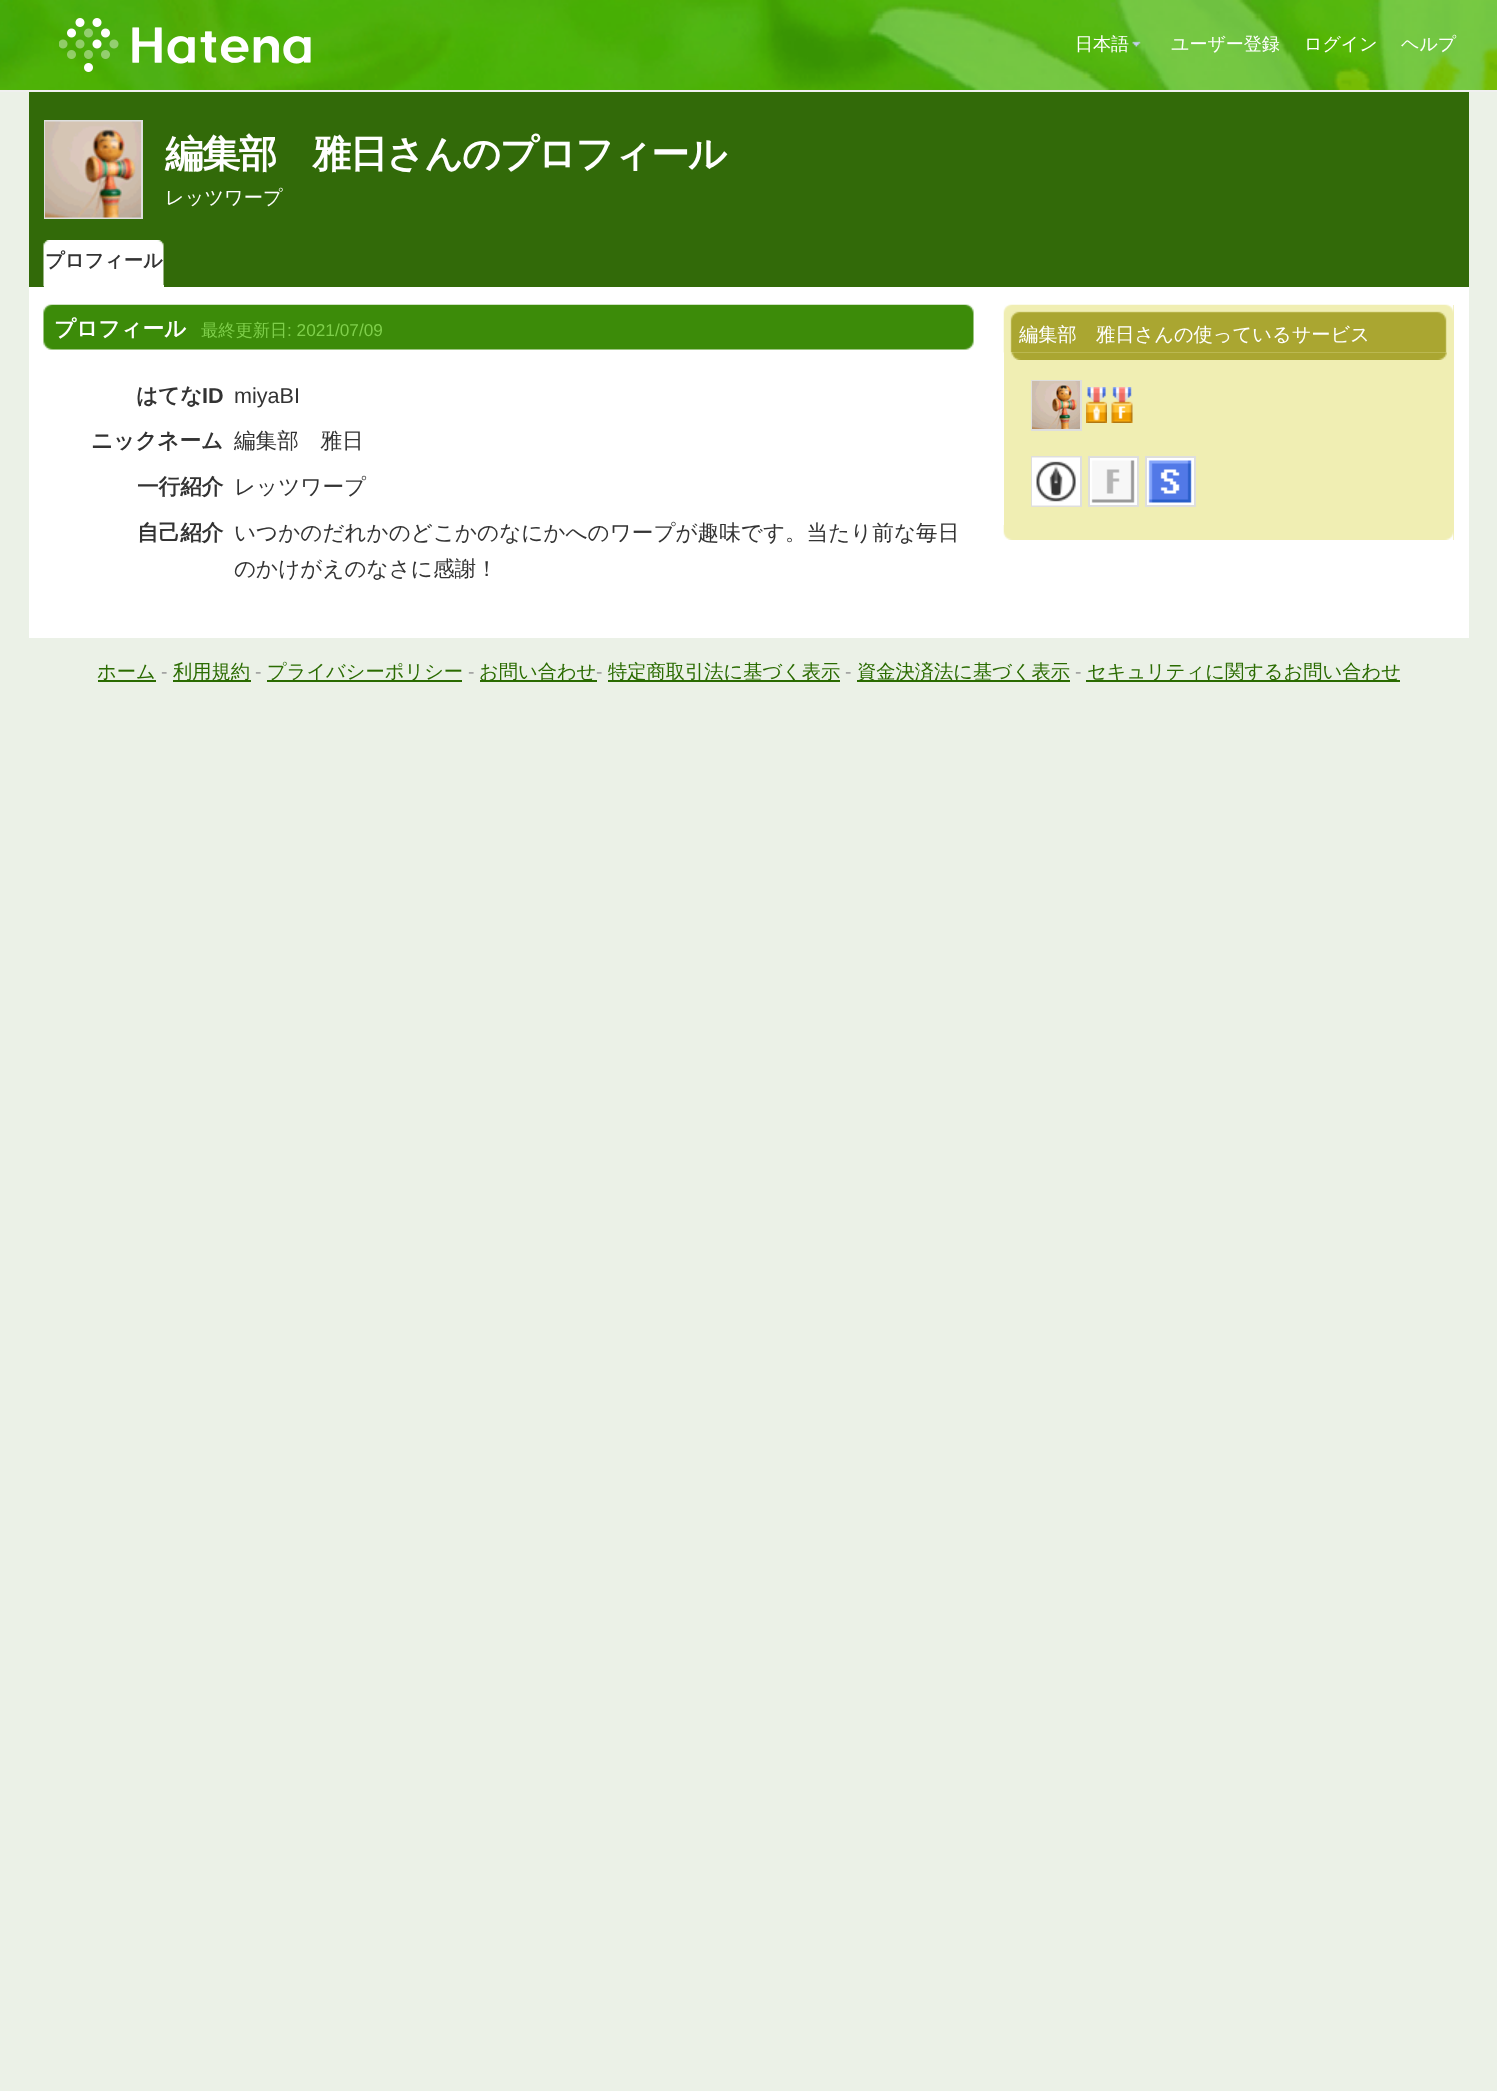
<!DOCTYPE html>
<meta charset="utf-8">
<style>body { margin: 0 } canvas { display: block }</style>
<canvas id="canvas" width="1497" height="2091"></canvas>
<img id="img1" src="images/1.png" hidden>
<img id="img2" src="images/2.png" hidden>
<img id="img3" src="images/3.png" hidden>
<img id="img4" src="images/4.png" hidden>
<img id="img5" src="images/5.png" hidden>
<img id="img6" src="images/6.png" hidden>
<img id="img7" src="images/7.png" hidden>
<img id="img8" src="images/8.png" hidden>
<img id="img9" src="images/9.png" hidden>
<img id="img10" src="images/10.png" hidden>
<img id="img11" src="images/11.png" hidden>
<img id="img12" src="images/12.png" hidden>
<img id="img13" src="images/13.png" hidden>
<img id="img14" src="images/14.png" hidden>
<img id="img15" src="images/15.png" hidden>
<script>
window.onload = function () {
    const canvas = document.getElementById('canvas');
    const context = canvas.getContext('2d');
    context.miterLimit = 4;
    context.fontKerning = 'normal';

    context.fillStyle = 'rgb(235, 241, 231)';
    context.fillRect(0, 0, 1497, 2091);
    context.drawImage(document.getElementById('img1'), 0, 0, 1497, 90);
    context.fillStyle = 'rgb(240, 240, 240)';
    context.fillRect(0, 90, 1497, 2);
    context.drawImage(document.getElementById('img2'), 59, 18, 252, 54);
    context.drawImage(document.getElementById('img3'), 1132, 41, 9, 6);
    context.fillStyle = 'rgb(50, 106, 9)';
    context.fillRect(29, 92, 1440, 195);
    context.strokeStyle = 'rgb(222, 222, 222)';
    context.lineWidth = 2;
    context.strokeRect(45, 121, 97, 97);
    context.drawImage(document.getElementById('img4'), 45, 121, 96, 97);
    context.drawImage(document.getElementById('img5'), 43, 240, 121, 47);
    context.fillStyle = 'rgb(255, 255, 255)';
    context.fillRect(44, 285, 120, 2);
    context.fillRect(29, 287, 1440, 351);
    context.drawImage(document.getElementById('img6'), 43, 304, 931, 46);
    context.fillStyle = 'rgb(240, 238, 179)';
    context.fillRect(1004, 305, 450, 235);
    context.drawImage(document.getElementById('img7'), 1003, 525, 451, 15);
    context.drawImage(document.getElementById('img8'), 1003, 304, 451, 49);
    context.drawImage(document.getElementById('img9'), 1010, 352, 437, 8);
    context.strokeRect(1032, 381, 49, 49);
    context.drawImage(document.getElementById('img10'), 1032, 381, 48, 48);
    context.drawImage(document.getElementById('img11'), 1086, 387, 21, 36);
    context.drawImage(document.getElementById('img12'), 1111, 387, 22, 36);
    context.strokeRect(1032, 457, 49, 49);
    context.drawImage(document.getElementById('img13'), 1032, 457, 48, 49);
    context.fillStyle = 'rgb(255, 255, 255)';
    context.beginPath();
    context.rect(1089, 457, 49, 49);
    context.fill();
    context.stroke();
    context.drawImage(document.getElementById('img14'), 1091, 460, 44, 43);
    context.beginPath();
    context.rect(1146, 457, 49, 49);
    context.fill();
    context.stroke();
    context.drawImage(document.getElementById('img15'), 1148, 460, 44, 43);
    context.fillStyle = 'rgb(42, 107, 1)';
    context.fillRect(98, 680, 58, 2);
    context.fillRect(173, 680, 78, 2);
    context.fillRect(267, 680, 195, 2);
    context.fillRect(480, 680, 117, 2);
    context.fillRect(608, 680, 232, 2);
    context.fillRect(857, 680, 213, 2);
    context.fillRect(1086, 680, 314, 2);
    context.font = '500 18px WenQuanYi Zen Hei';
    context.fillStyle = 'rgb(255, 255, 255)';
    context.fillText('日本語', 1075, 50);
    context.fillText('ユーザー登録', 1171, 50);
    context.fillText('ログイン', 1304, 50);
    context.fillText('ヘルプ', 1401, 50);
    context.letterSpacing = '-1.5px';
    context.font = 'bold 38.4px WenQuanYi Zen Hei';
    context.fillText('編集部　雅日さんのプロフィール', 165, 167);
    context.letterSpacing = '0px';
    context.font = '500 19.25px WenQuanYi Zen Hei';
    context.fillText('レッツワープ', 165, 204);
    context.font = 'bold 19.25px WenQuanYi Zen Hei';
    context.fillStyle = 'rgb(51, 51, 51)';
    context.fillText('プロフィール', 45, 267);
    context.font = 'bold 21.6px WenQuanYi Zen Hei';
    context.fillStyle = 'rgb(255, 255, 255)';
    context.fillText('プロフィール', 54, 336);
    context.font = '500 17.25px WenQuanYi Zen Hei';
    context.fillStyle = 'rgb(127, 207, 75)';
    context.fillText('最終更新日', 201, 336);
    context.font = '17.25px Liberation Sans';
    context.fillText(': 2021/07/09', 287, 336);
    context.font = 'bold 21.6px WenQuanYi Zen Hei';
    context.fillStyle = 'rgb(51, 51, 51)';
    context.fillText('はてな', 136, 403);
    context.font = 'bold 21.6px Liberation Sans';
    context.fillText('ID', 202, 403);
    context.font = '21.6px Liberation Sans';
    context.fillText('miyaBI', 234, 403);
    context.font = 'bold 21.6px WenQuanYi Zen Hei';
    context.fillText('ニックネーム', 91, 448);
    context.font = '500 21.6px WenQuanYi Zen Hei';
    context.fillText('編集部　雅日', 234, 448);
    context.font = 'bold 21.6px WenQuanYi Zen Hei';
    context.fillText('一行紹介', 137, 494);
    context.font = '500 21.6px WenQuanYi Zen Hei';
    context.fillText('レッツワープ', 234, 494);
    context.font = 'bold 21.6px WenQuanYi Zen Hei';
    context.fillText('自己紹介', 137, 540);
    context.font = '500 21.6px WenQuanYi Zen Hei';
    context.fillText('いつかのだれかのどこかのなにかへのワープが趣味です。当たり前な毎日', 234, 540);
    context.fillText('のかけがえのなさに感謝！', 234, 576);
    context.font = '500 19.25px WenQuanYi Zen Hei';
    context.fillStyle = 'rgb(255, 255, 255)';
    context.fillText('編集部　雅日さんの使っているサービス', 1019, 341);
    context.fillStyle = 'rgb(42, 107, 1)';
    context.fillText('ホーム', 97, 678);
    context.font = '19.25px Liberation Sans';
    context.fillStyle = 'rgb(153, 153, 153)';
    context.fillText('-', 161, 678);
    context.font = '500 19.25px WenQuanYi Zen Hei';
    context.fillStyle = 'rgb(42, 107, 1)';
    context.fillText('利用規約', 173, 678);
    context.font = '19.25px Liberation Sans';
    context.fillStyle = 'rgb(153, 153, 153)';
    context.fillText('-', 255, 678);
    context.font = '500 19.25px WenQuanYi Zen Hei';
    context.fillStyle = 'rgb(42, 107, 1)';
    context.fillText('プライバシーポリシー', 267, 678);
    context.font = '19.25px Liberation Sans';
    context.fillStyle = 'rgb(153, 153, 153)';
    context.fillText('-', 468, 678);
    context.font = '500 19.25px WenQuanYi Zen Hei';
    context.fillStyle = 'rgb(42, 107, 1)';
    context.fillText('お問い合わせ', 479, 678);
    context.font = '19.25px Liberation Sans';
    context.fillStyle = 'rgb(153, 153, 153)';
    context.fillText('-', 596, 678);
    context.font = '500 19.25px WenQuanYi Zen Hei';
    context.fillStyle = 'rgb(42, 107, 1)';
    context.fillText('特定商取引法に基づく表示', 608, 678);
    context.font = '19.25px Liberation Sans';
    context.fillStyle = 'rgb(153, 153, 153)';
    context.fillText('-', 845, 678);
    context.font = '500 19.25px WenQuanYi Zen Hei';
    context.fillStyle = 'rgb(42, 107, 1)';
    context.fillText('資金決済法に基づく表示', 857, 678);
    context.font = '19.25px Liberation Sans';
    context.fillStyle = 'rgb(153, 153, 153)';
    context.fillText('-', 1075, 678);
    context.font = '500 19.25px WenQuanYi Zen Hei';
    context.fillStyle = 'rgb(42, 107, 1)';
    context.fillText('セキュリティに関するお問い合わせ', 1087, 678);
};
</script>
